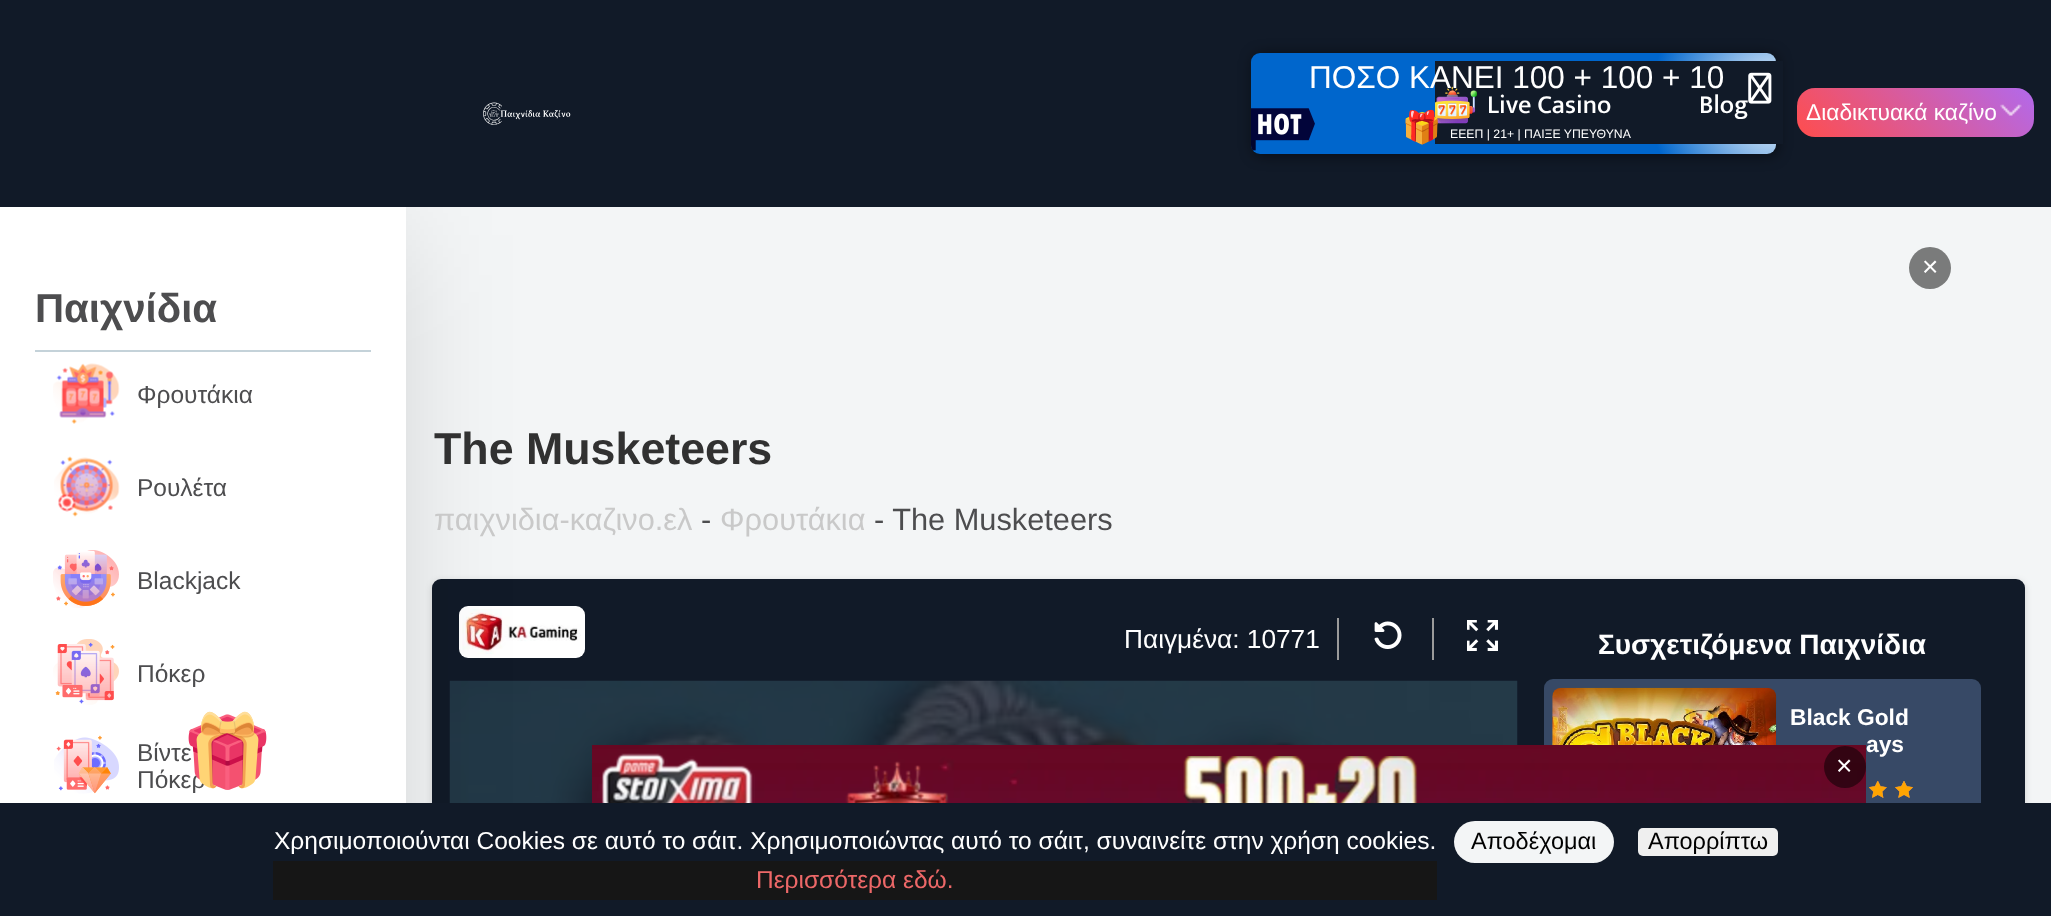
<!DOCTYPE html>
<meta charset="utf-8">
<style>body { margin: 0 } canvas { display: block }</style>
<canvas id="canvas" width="2051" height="916"></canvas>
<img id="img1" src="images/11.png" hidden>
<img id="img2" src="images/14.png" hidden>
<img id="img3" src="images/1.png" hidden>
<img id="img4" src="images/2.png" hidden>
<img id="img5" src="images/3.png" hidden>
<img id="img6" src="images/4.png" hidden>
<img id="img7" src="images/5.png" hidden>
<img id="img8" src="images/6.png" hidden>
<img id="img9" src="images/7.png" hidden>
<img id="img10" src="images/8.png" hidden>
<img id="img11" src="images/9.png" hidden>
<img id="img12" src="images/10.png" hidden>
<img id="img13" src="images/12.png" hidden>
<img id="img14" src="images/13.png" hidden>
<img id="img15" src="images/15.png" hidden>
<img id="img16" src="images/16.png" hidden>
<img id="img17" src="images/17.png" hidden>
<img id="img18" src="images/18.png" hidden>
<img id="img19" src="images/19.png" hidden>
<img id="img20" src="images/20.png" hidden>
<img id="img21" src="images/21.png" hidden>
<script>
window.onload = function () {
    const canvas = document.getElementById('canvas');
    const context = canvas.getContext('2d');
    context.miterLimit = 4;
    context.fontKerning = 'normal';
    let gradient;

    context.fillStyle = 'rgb(243, 245, 246)';
    context.fillRect(0, 0, 2051, 916);
    context.fillStyle = 'rgba(0, 0, 0, 0.15)';
    context.filter = 'blur(3.5px)';
    context.beginPath();
    context.roundRect(432, 581, 1593, 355, 9);
    context.fill();
    context.filter = 'none';
    context.fillStyle = 'rgb(17, 26, 40)';
    context.beginPath();
    context.roundRect(432, 579, 1593, 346, 9);
    context.fill();
    context.fillStyle = 'rgb(255, 255, 255)';
    context.beginPath();
    context.roundRect(459, 606, 126, 52, 9);
    context.fill();
    context.drawImage(document.getElementById('img1'), 462, 609, 119, 45);
    context.drawImage(document.getElementById('img2'), 449, 680, 1069, 123);
    context.fillStyle = 'rgba(0, 0, 0, 0.16)';
    context.filter = 'blur(60.5px)';
    context.beginPath();
    context.rect(35, 235, 354, 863);
    context.fill();
    context.filter = 'none';
    context.fillStyle = 'rgb(17, 26, 40)';
    context.fillRect(0, 0, 2051, 207);
    context.drawImage(document.getElementById('img3'), 483, 102, 88, 23);
    context.fillStyle = 'rgba(0, 0, 0, 0.5)';
    context.filter = 'blur(7px)';
    context.beginPath();
    context.roundRect(1253, 54, 525, 102, 9);
    context.fill();
    context.filter = 'none';
    gradient = context.createRadialGradient(1776, 103, 0, 1776, 103, 527);
    gradient.addColorStop(0, 'rgb(255, 255, 255)');
    gradient.addColorStop(0.24, 'rgb(0, 102, 204)');
    gradient.addColorStop(0.52, 'rgb(0, 102, 204)');
    context.fillStyle = gradient;
    context.beginPath();
    context.roundRect(1251, 53, 525, 101, 9);
    context.fill();
    context.drawImage(document.getElementById('img4'), 1251, 108, 64, 43);
    context.fillStyle = 'rgb(17, 26, 40)';
    context.fillRect(1435, 61, 348, 83);
    context.drawImage(document.getElementById('img5'), 1748, 72, 24, 32);
    context.drawImage(document.getElementById('img6'), 1435, 86, 42, 38);
    gradient = context.createLinearGradient(1844, 183, 1987, 41);
    gradient.addColorStop(0, 'rgb(255, 77, 77)');
    gradient.addColorStop(1, 'rgb(178, 105, 236)');
    context.fillStyle = gradient;
    context.beginPath();
    context.roundRect(1797, 88, 237, 49, 18);
    context.fill();
    context.drawImage(document.getElementById('img7'), 2000, 104, 22, 12);
    context.fillStyle = 'rgb(255, 255, 255)';
    context.fillRect(0, 207, 406, 596);
    context.fillStyle = 'rgb(196, 210, 217)';
    context.fillRect(35, 350, 336, 2);
    context.drawImage(document.getElementById('img8'), 53, 363, 67, 61);
    context.drawImage(document.getElementById('img9'), 54, 456, 66, 61);
    context.drawImage(document.getElementById('img10'), 53, 550, 66, 58);
    context.drawImage(document.getElementById('img11'), 53, 639, 66, 66);
    context.drawImage(document.getElementById('img12'), 54, 735, 65, 59);
    context.fillStyle = 'rgb(122, 123, 123)';
    context.beginPath();
    context.arc(1930, 268, 21, 0, 2 * Math.PI);
    context.fill();
    context.fillStyle = 'rgb(155, 155, 155)';
    context.fillRect(1337, 618, 2, 42);
    context.drawImage(document.getElementById('img13'), 1374, 621, 28, 28);
    context.fillRect(1432, 618, 2, 42);
    context.drawImage(document.getElementById('img14'), 1467, 620, 31, 31);
    context.fillStyle = 'rgb(55, 73, 102)';
    context.beginPath();
    context.roundRect(1544, 679, 437, 172, 9);
    context.fill();
    context.drawImage(document.getElementById('img15'), 1552, 687, 225, 58);
    context.fillStyle = 'rgb(54, 72, 102)';
    context.fillRect(1776, 704, 1, 41);
    context.drawImage(document.getElementById('img16'), 1869, 781, 18, 17);
    context.drawImage(document.getElementById('img17'), 1895, 781, 18, 17);
    context.drawImage(document.getElementById('img18'), 1869, 781, 18, 17);
    context.drawImage(document.getElementById('img19'), 1895, 781, 18, 17);
    context.drawImage(document.getElementById('img20'), 592, 745, 1274, 58);
    context.fillStyle = 'rgba(0, 0, 0, 0.5)';
    context.beginPath();
    context.arc(1845, 767, 21, 0, 2 * Math.PI);
    context.fill();
    context.fillStyle = 'rgb(17, 26, 40)';
    context.fillRect(0, 803, 2051, 113);
    context.fillStyle = 'rgb(22, 22, 22)';
    context.fillRect(273, 861, 1164, 39);
    context.fillStyle = 'rgb(243, 245, 246)';
    context.beginPath();
    context.roundRect(1454, 821, 160, 42, 21);
    context.fill();
    context.fillStyle = 'rgb(239, 239, 239)';
    context.beginPath();
    context.roundRect(1638, 828, 140, 28, 5);
    context.fill();
    context.font = '31.5px Liberation Sans';
    context.fillStyle = 'rgb(255, 255, 255)';
    context.fillText('ΠΟΣΟ ΚΑΝΕΙ 100 + 100 + 10', 1309, 88);
    context.font = '31.5px Noto Color Emoji';
    context.fillText('🎁', 1402, 138);
    context.font = '12.25px Liberation Sans';
    context.fillText('ΕΕΕΠ | 21+ | ΠΑΙΞΕ ΥΠΕΥΘΥΝΑ', 1450, 138);
    context.font = '500 26.25px Ek Mukta';
    context.fillText('Live Casino', 1487, 113);
    context.fillText('Blog', 1699, 113);
    context.font = '22.75px Liberation Sans';
    context.fillText('Διαδικτυακά καζίνο', 1806, 120);
    context.font = 'bold 40.25px Liberation Sans';
    context.fillStyle = 'rgb(77, 77, 79)';
    context.fillText('Παιχνίδια', 35, 322);
    context.font = '24.5px Liberation Sans';
    context.fillText('Φρουτάκια', 137, 403);
    context.fillText('Ρουλέτα', 137, 496);
    context.fillText('Blackjack', 137, 589);
    context.fillText('Πόκερ', 137, 682);
    context.fillText('Βίντε', 137, 761);
    context.fillText('Πόκερ', 137, 788);
    context.font = '28px Liberation Sans';
    context.fillStyle = 'rgb(255, 255, 255)';
    context.fillText('×', 1922, 276);
    context.font = 'bold 44.75px Liberation Sans';
    context.fillStyle = 'rgb(49, 49, 49)';
    context.fillText('The Musketeers', 434, 464);
    context.font = '30.75px Liberation Sans';
    context.fillStyle = 'rgb(201, 201, 201)';
    context.fillText('παιχνιδια-καζινο.ελ', 434, 530);
    context.fillStyle = 'rgb(77, 77, 79)';
    context.fillText('-', 701, 530);
    context.fillStyle = 'rgb(201, 201, 201)';
    context.fillText('Φρουτάκια', 720, 530);
    context.fillStyle = 'rgb(77, 77, 79)';
    context.fillText('- The Musketeers', 874, 530);
    context.font = '26.25px Liberation Sans';
    context.fillStyle = 'rgb(255, 255, 255)';
    context.fillText('Παιγμένα: 10771', 1124, 648);
    context.font = 'bold 28px Liberation Sans';
    context.fillText('Συσχετιζόμενα Παιχνίδια', 1598, 654);
    context.font = 'bold 22.75px Liberation Sans';
    context.fillText('Black Gold', 1790, 725);
    context.fillText('ays', 1866, 752);
    context.font = '28px Liberation Sans';
    context.fillText('×', 1836, 775);
    context.font = '24.5px Liberation Sans';
    context.fillText('Χρησιμοποιούνται Cookies σε αυτό το σάιτ. Χρησιμοποιώντας αυτό το σάιτ, συναινείτε στην χρήση cookies.', 274, 849);
    context.fillStyle = 'rgb(237, 104, 104)';
    context.fillText('Περισσότερα εδώ.', 756, 888);
    context.font = '23.5px Liberation Sans';
    context.fillStyle = 'rgb(0, 0, 0)';
    context.fillText('Αποδέχομαι', 1471, 849);
    context.fillText('Απορρίπτω', 1648, 849);
    context.drawImage(document.getElementById('img21'), 188, 711, 79, 79);
};
</script>
